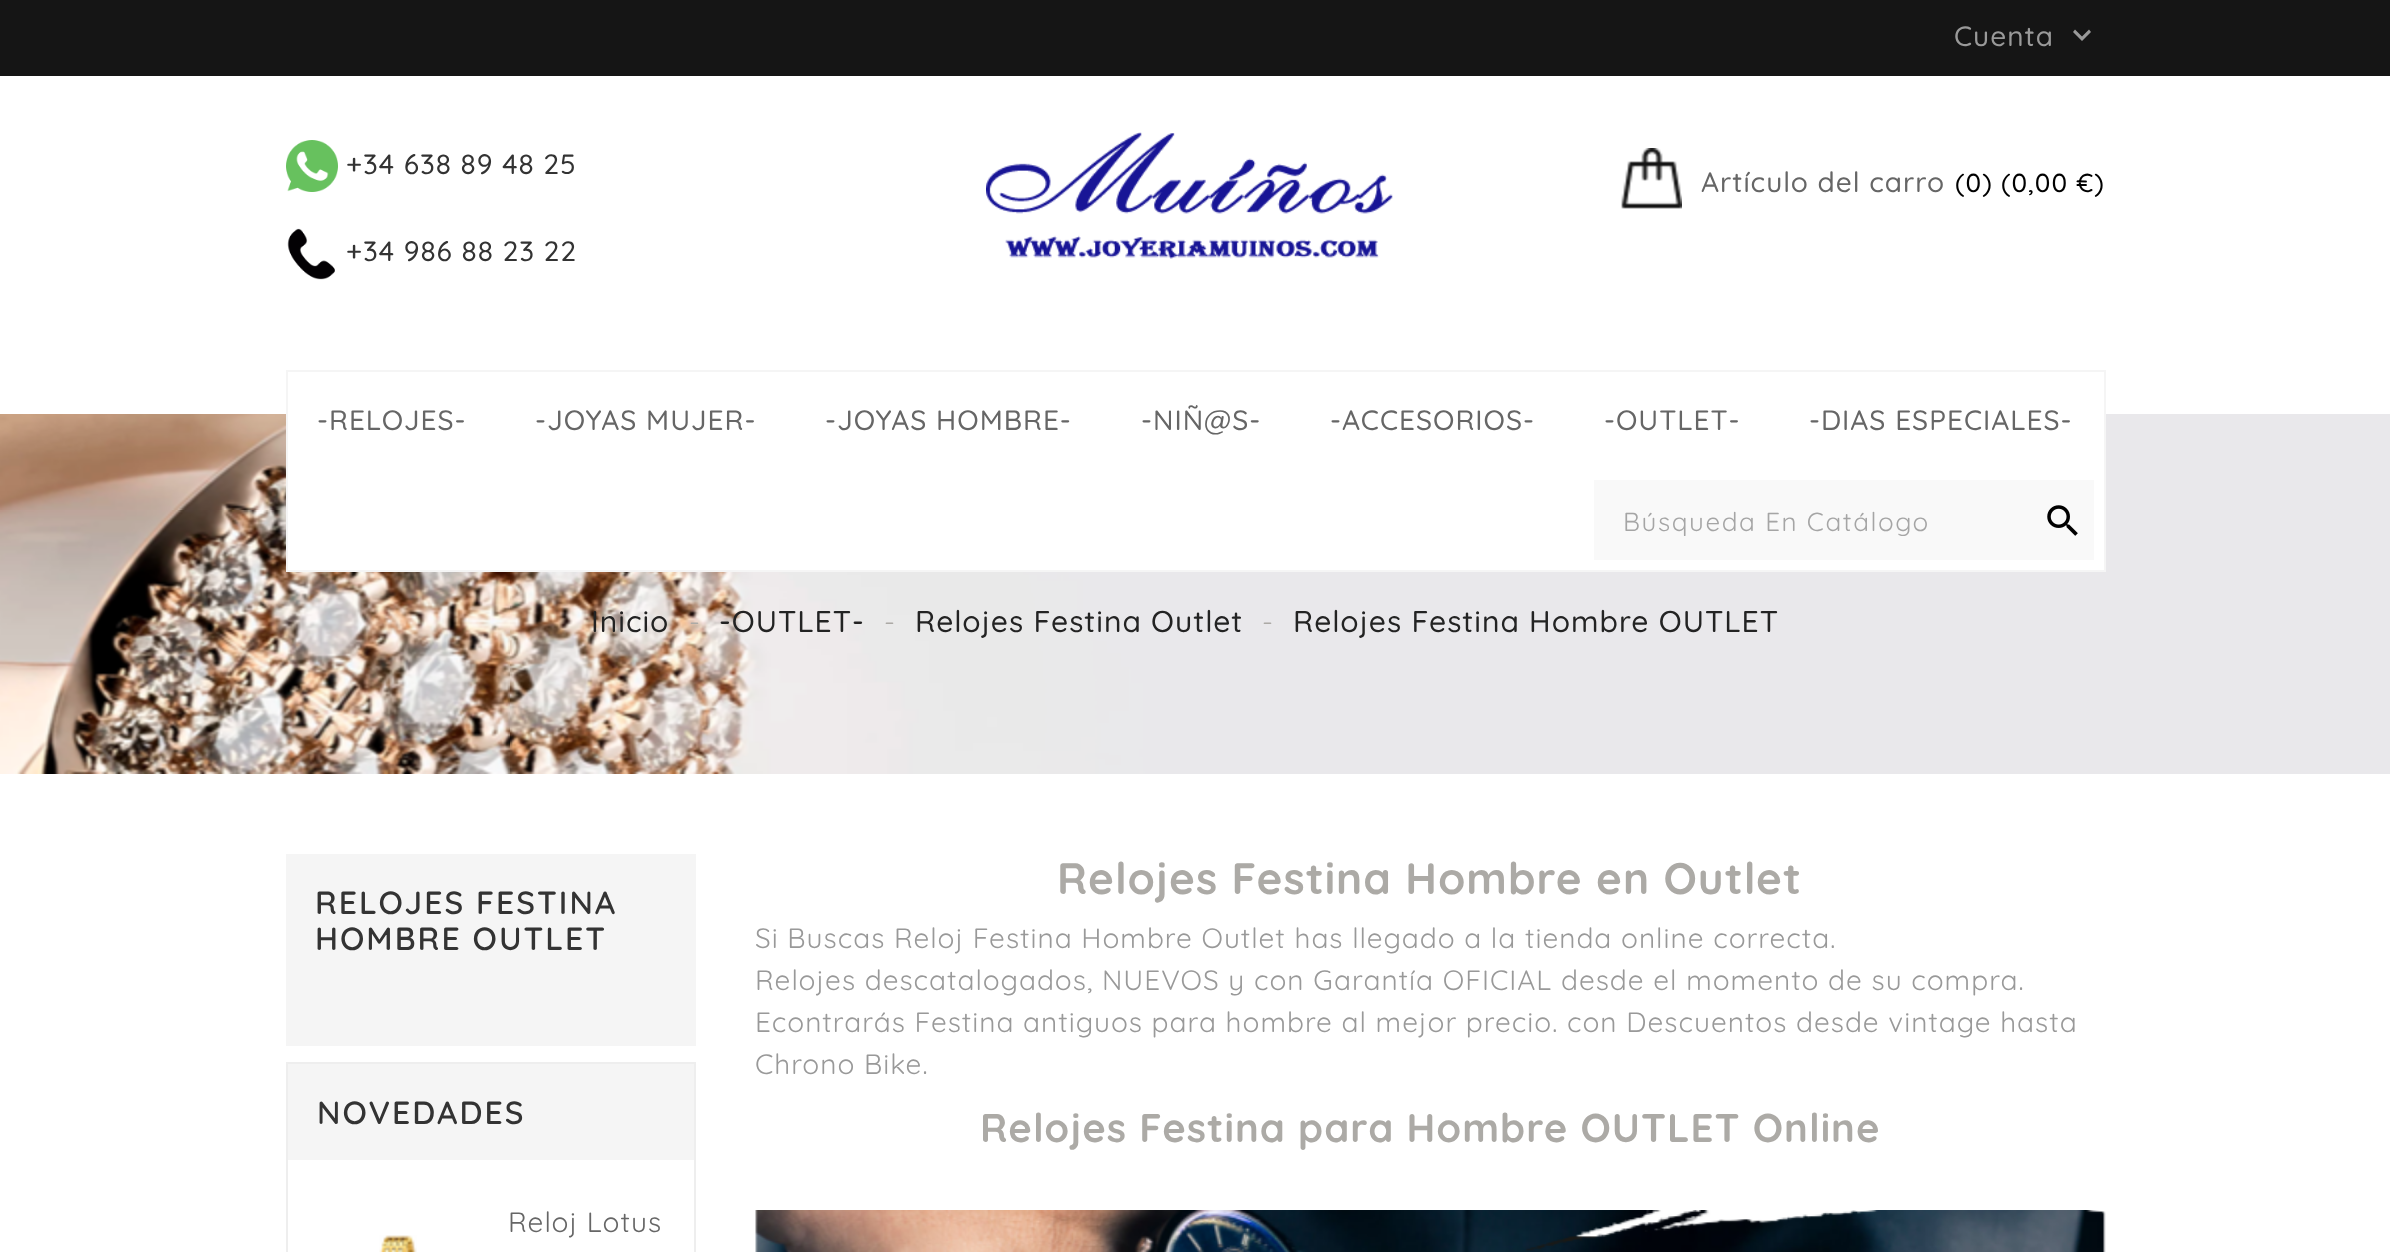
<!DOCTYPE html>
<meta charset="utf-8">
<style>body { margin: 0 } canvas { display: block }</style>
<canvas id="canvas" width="2390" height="1252"></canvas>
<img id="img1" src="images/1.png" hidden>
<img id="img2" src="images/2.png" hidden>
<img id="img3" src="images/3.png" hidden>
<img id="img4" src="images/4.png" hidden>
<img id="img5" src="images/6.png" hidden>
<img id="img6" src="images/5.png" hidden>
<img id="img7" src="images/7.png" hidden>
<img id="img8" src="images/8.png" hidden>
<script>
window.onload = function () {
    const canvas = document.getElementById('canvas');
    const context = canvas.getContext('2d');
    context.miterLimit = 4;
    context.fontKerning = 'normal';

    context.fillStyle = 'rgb(255, 255, 255)';
    context.fillRect(0, 0, 2390, 1252);
    context.fillStyle = 'rgb(21, 21, 21)';
    context.fillRect(0, 0, 2390, 76);
    context.fillStyle = 'rgb(153, 153, 153)';
    context.beginPath();
    context.moveTo(2075, 29.5);
    context.lineTo(2082, 36.5);
    context.lineTo(2089, 29.5);
    context.lineTo(2091, 32);
    context.lineTo(2082, 41);
    context.lineTo(2073, 32);
    context.closePath();
    context.fill();
    context.drawImage(document.getElementById('img1'), 286, 140, 52, 52);
    context.drawImage(document.getElementById('img2'), 287, 228, 48, 52);
    context.drawImage(document.getElementById('img3'), 986, 132, 407, 127);
    context.drawImage(document.getElementById('img4'), 1621, 148, 61, 61);
    context.drawImage(document.getElementById('img5'), 0, 414, 2390, 360);
    context.fillStyle = 'rgb(255, 255, 255)';
    context.fillRect(288, 414, 1816, 156);
    context.strokeStyle = 'rgb(245, 245, 245)';
    context.lineWidth = 2;
    context.strokeRect(287, 371, 1818, 200);
    context.fillStyle = 'rgb(249, 249, 249)';
    context.fillRect(1594, 480, 500, 80);
    context.drawImage(document.getElementById('img6'), 2047, 505, 31, 31);
    context.fillStyle = 'rgb(245, 245, 245)';
    context.fillRect(286, 854, 410, 192);
    context.strokeStyle = 'rgb(238, 238, 238)';
    context.strokeRect(287, 1063, 408, 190);
    context.fillRect(288, 1064, 406, 96);
    context.drawImage(document.getElementById('img7'), 379, 1235, 38, 17);
    context.drawImage(document.getElementById('img8'), 755, 1210, 1351, 42);
    context.letterSpacing = '1px';
    context.font = '500 28px Quicksand';
    context.fillStyle = 'rgb(153, 153, 153)';
    context.fillText('Cuenta', 1954, 46);
    context.fillStyle = 'rgb(51, 51, 51)';
    context.fillText('+34 638 89 48 25', 346, 174);
    context.fillText('+34 986 88 23 22', 346, 261);
    context.fillStyle = 'rgb(102, 102, 102)';
    context.fillText('Artículo del carro', 1701, 192);
    context.font = '500 26px Quicksand';
    context.fillStyle = 'rgb(0, 0, 0)';
    context.fillText('(0) (0,00 €)', 1955, 192);
    context.font = '500 28px Quicksand';
    context.fillStyle = 'rgb(102, 102, 102)';
    context.fillText('-RELOJES-', 317, 430);
    context.fillText('-JOYAS MUJER-', 535, 430);
    context.fillText('-JOYAS HOMBRE-', 825, 430);
    context.fillText('-NIÑ@S-', 1141, 430);
    context.fillText('-ACCESORIOS-', 1330, 430);
    context.fillText('-OUTLET-', 1604, 430);
    context.fillText('-DIAS ESPECIALES-', 1809, 430);
    context.save();
    context.beginPath();
    context.rect(1614, 504, 460, 32);
    context.clip();
    context.letterSpacing = '1.6px';
    context.font = '26px Quicksand';
    context.fillStyle = 'rgb(165, 165, 165)';
    context.fillText('Búsqueda En Catálogo', 1623, 531);
    context.restore();
    context.font = '500 30px Quicksand';
    context.fillStyle = 'rgb(35, 35, 35)';
    context.fillText('Inicio', 591, 632);
    context.font = '28px Quicksand';
    context.fillStyle = 'rgb(172, 170, 166)';
    context.fillText('-', 689, 632);
    context.font = '500 30px Quicksand';
    context.fillStyle = 'rgb(35, 35, 35)';
    context.fillText('-OUTLET-', 719, 632);
    context.font = '28px Quicksand';
    context.fillStyle = 'rgb(172, 170, 166)';
    context.fillText('-', 884, 632);
    context.font = '500 30px Quicksand';
    context.fillStyle = 'rgb(35, 35, 35)';
    context.fillText('Relojes Festina Outlet', 915, 632);
    context.font = '28px Quicksand';
    context.fillStyle = 'rgb(172, 170, 166)';
    context.fillText('-', 1262, 632);
    context.font = '500 30px Quicksand';
    context.fillStyle = 'rgb(35, 35, 35)';
    context.fillText('Relojes Festina Hombre OUTLET', 1293, 632);
    context.letterSpacing = '2px';
    context.font = '600 32px Quicksand';
    context.fillStyle = 'rgb(51, 51, 51)';
    context.fillText('RELOJES FESTINA', 315, 914);
    context.fillText('HOMBRE OUTLET', 315, 950);
    context.fillText('NOVEDADES', 317, 1124);
    context.letterSpacing = '1px';
    context.font = '28px Quicksand';
    context.fillStyle = 'rgb(102, 102, 102)';
    context.fillText('Reloj Lotus', 508, 1232);
    context.font = 'bold 44px Quicksand';
    context.fillStyle = 'rgb(172, 170, 166)';
    context.fillText('Relojes Festina Hombre en Outlet', 1057, 894);
    context.font = '28px Quicksand';
    context.fillStyle = 'rgb(153, 153, 153)';
    context.fillText('Si Buscas Reloj Festina Hombre Outlet has llegado a la tienda online correcta.', 755, 948);
    context.fillText('Relojes descatalogados, NUEVOS y con Garantía OFICIAL desde el momento de su compra.', 755, 990);
    context.fillText('Econtrarás Festina antiguos para hombre al mejor precio. con Descuentos desde vintage hasta', 755, 1032);
    context.fillText('Chrono Bike.', 755, 1074);
    context.font = 'bold 40px Quicksand';
    context.fillStyle = 'rgb(172, 170, 166)';
    context.fillText('Relojes Festina para Hombre OUTLET Online', 980, 1142);
};
</script>
